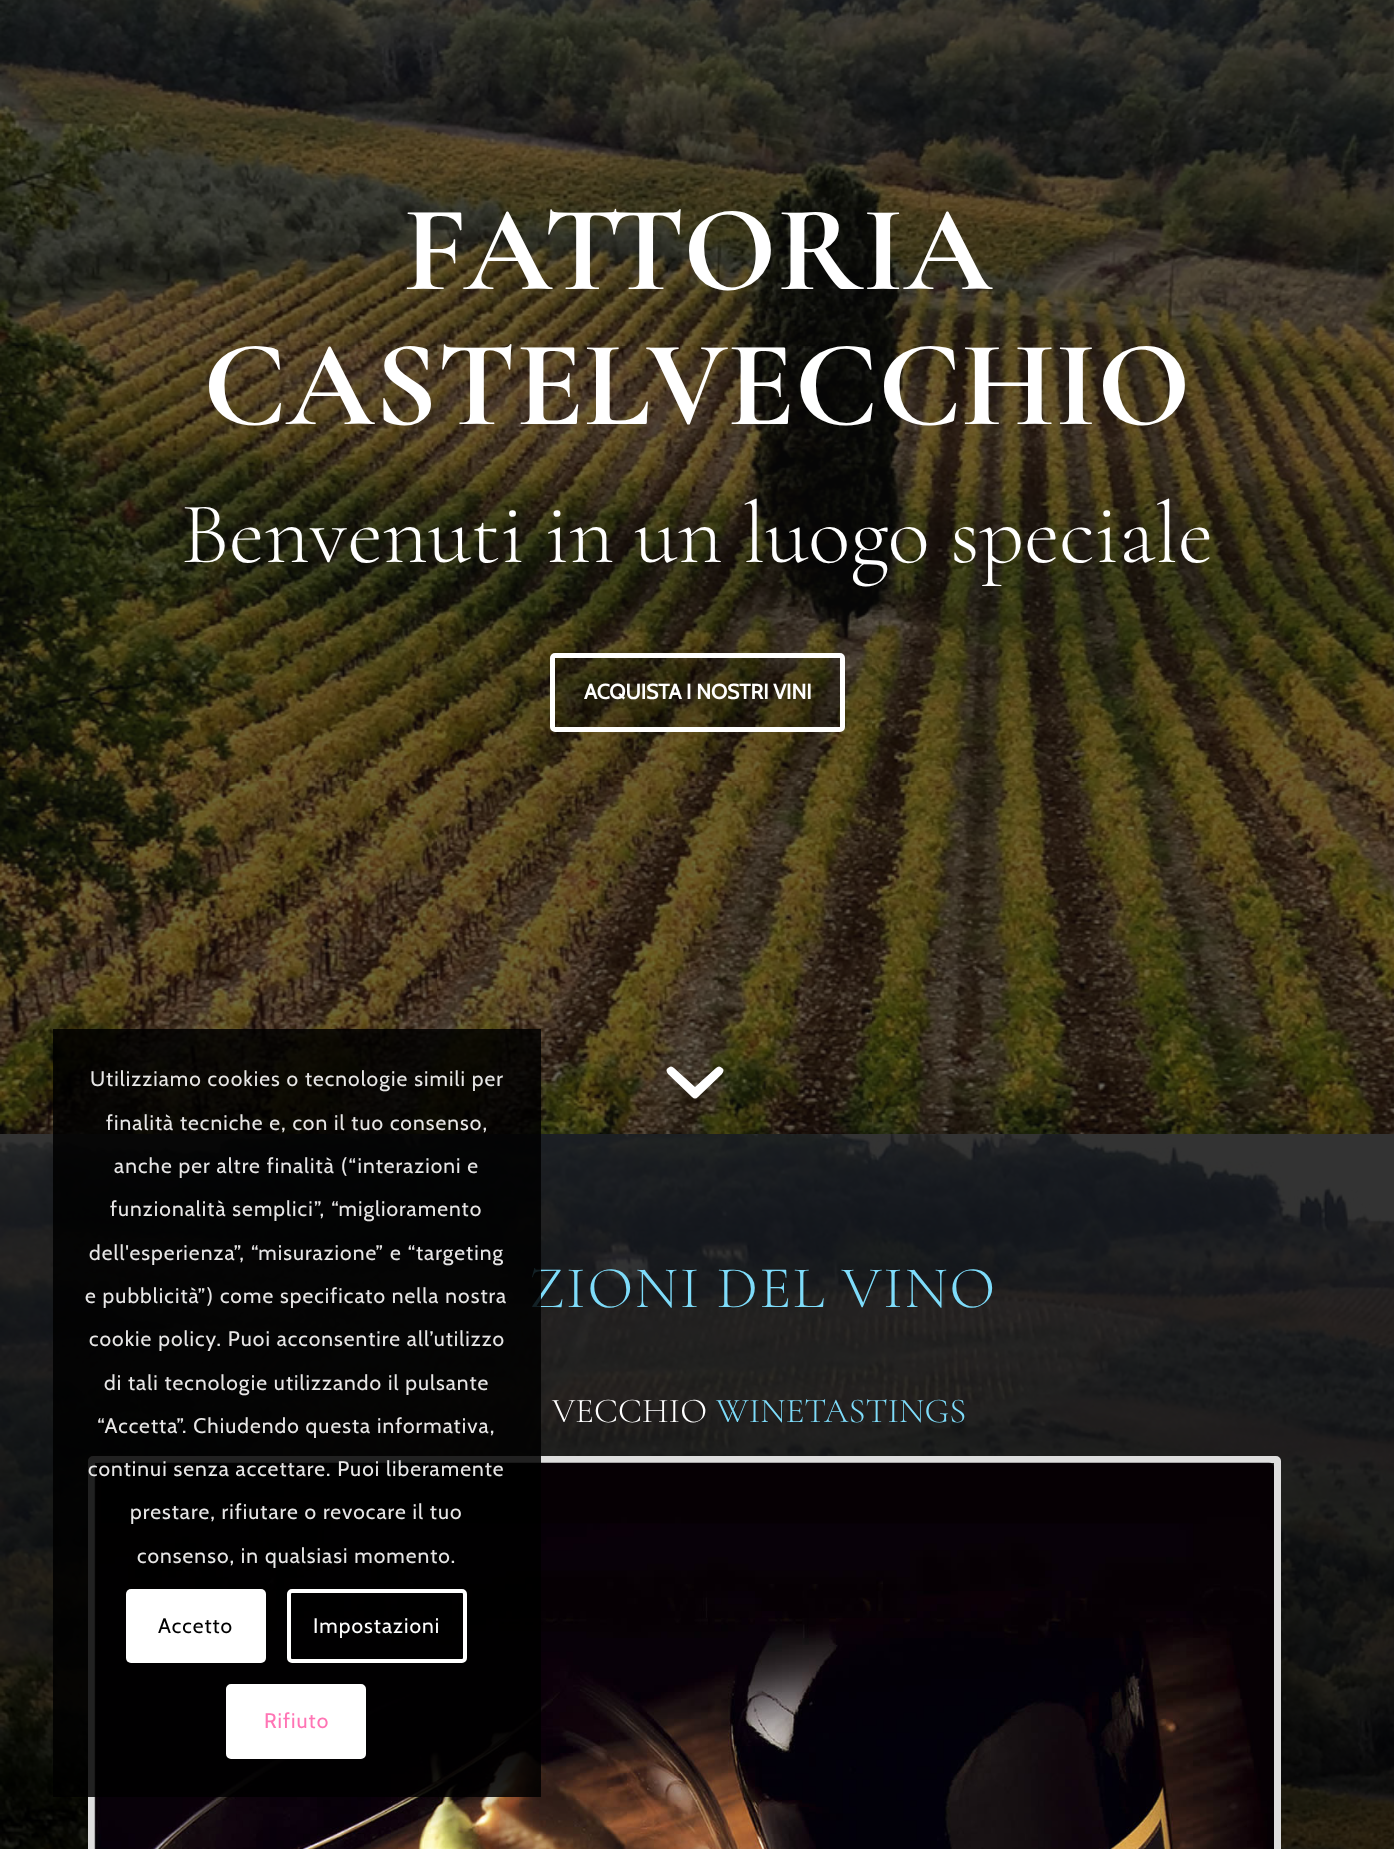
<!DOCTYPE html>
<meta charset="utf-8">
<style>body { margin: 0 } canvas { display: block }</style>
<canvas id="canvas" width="1394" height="1849"></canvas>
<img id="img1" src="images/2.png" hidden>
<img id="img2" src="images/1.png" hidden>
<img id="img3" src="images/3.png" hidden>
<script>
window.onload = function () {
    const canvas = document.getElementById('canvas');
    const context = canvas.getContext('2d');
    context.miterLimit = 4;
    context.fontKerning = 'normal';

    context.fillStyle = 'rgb(255, 255, 255)';
    context.fillRect(0, 0, 1394, 1849);
    context.drawImage(document.getElementById('img1'), 0, 1133, 1394, 716);
    context.drawImage(document.getElementById('img2'), 0, 0, 1394, 1134);
    context.fillStyle = 'rgba(10, 10, 10, 0.6)';
    context.fillRect(0, 0, 1394, 1134);
    context.fillStyle = 'rgba(0, 0, 0, 0.2)';
    context.beginPath();
    context.roundRect(552.5, 655.5, 290, 74, 2.5);
    context.fill();
    context.strokeStyle = 'rgb(255, 255, 255)';
    context.lineWidth = 5;
    context.stroke();
    context.fillStyle = 'rgb(255, 255, 255)';
    context.beginPath();
    context.moveTo(716, 1068);
    context.bezierCurveTo(718, 1066, 720, 1066, 722, 1068);
    context.bezierCurveTo(724, 1069, 724, 1071, 722, 1074);
    context.lineTo(698, 1097);
    context.bezierCurveTo(696, 1099, 694, 1099, 692, 1097);
    context.lineTo(668, 1074);
    context.bezierCurveTo(666, 1071, 666, 1069, 668, 1068);
    context.bezierCurveTo(670, 1066, 672, 1066, 674, 1068);
    context.lineTo(695, 1087);
    context.closePath();
    context.fill();
    context.beginPath();
    context.roundRect(91.5, 1459.5, 1186, 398, 1.5);
    context.strokeStyle = 'rgb(222, 222, 222)';
    context.lineWidth = 7;
    context.stroke();
    context.drawImage(document.getElementById('img3'), 94, 1462, 1180, 387);
    context.font = 'bold 122.5px Cormorant Garamond';
    context.fillText('FATTORIA', 403, 289);
    context.fillText('CASTELVECCHIO', 203, 424);
    context.font = '300 87.5px Cormorant Garamond';
    context.fillText('Benvenuti in un luogo speciale', 181, 562);
    context.font = 'bold 21px Cabin';
    context.fillText('ACQUISTA I NOSTRI VINI', 584, 699);
    context.letterSpacing = '1.75px';
    context.font = '300 59.5px Cormorant Garamond';
    context.fillStyle = 'rgb(126, 220, 250)';
    context.fillText('ZIONI DEL VINO', 529, 1307);
    context.letterSpacing = '0px';
    context.font = '300 35px Cormorant Garamond';
    context.fillStyle = 'rgb(255, 255, 255)';
    context.fillText('VECCHIO', 552, 1422);
    context.fillStyle = 'rgb(126, 220, 250)';
    context.fillText('WINETASTINGS', 716, 1422);
    context.fillStyle = 'rgba(0, 0, 0, 0.85)';
    context.fillRect(53, 1029, 488, 768);
    context.letterSpacing = '1.05px';
    context.font = '21px Cabin';
    context.fillStyle = 'rgb(231, 230, 230)';
    context.fillText('Utilizziamo cookies o tecnologie simili per', 90, 1086);
    context.fillText('finalità tecniche e, con il tuo consenso,', 106, 1130);
    context.fillText('anche per altre finalità (“interazioni e', 114, 1173);
    context.fillText('funzionalità semplici”, “miglioramento', 110, 1216);
    context.fillText('dell\'esperienza”, “misurazione” e “targeting', 89, 1260);
    context.fillText('e pubblicità”) come specificato nella nostra', 85, 1303);
    context.fillText('cookie policy. Puoi acconsentire all’utilizzo', 89, 1346);
    context.fillText('di tali tecnologie utilizzando il pulsante', 104, 1390);
    context.fillText('“Accetta”. Chiudendo questa informativa,', 97, 1433);
    context.fillText('continui senza accettare. Puoi liberamente', 88, 1476);
    context.fillText('prestare, rifiutare o revocare il tuo', 130, 1519);
    context.fillText('consenso, in qualsiasi momento.', 137, 1563);
    context.fillStyle = 'rgb(255, 255, 255)';
    context.beginPath();
    context.roundRect(126, 1589, 140, 74, 5);
    context.fill();
    context.fillStyle = 'rgb(0, 0, 0)';
    context.fillText('Accetto', 158, 1633);
    context.beginPath();
    context.roundRect(289, 1591, 176, 70, 3);
    context.strokeStyle = 'rgb(255, 255, 255)';
    context.lineWidth = 4;
    context.stroke();
    context.fillStyle = 'rgb(255, 255, 255)';
    context.fillText('Impostazioni', 313, 1633);
    context.beginPath();
    context.roundRect(228, 1686, 136, 71, 3);
    context.fill();
    context.stroke();
    context.fillStyle = 'rgb(255, 117, 181)';
    context.fillText('Rifiuto', 264, 1728);
};
</script>
